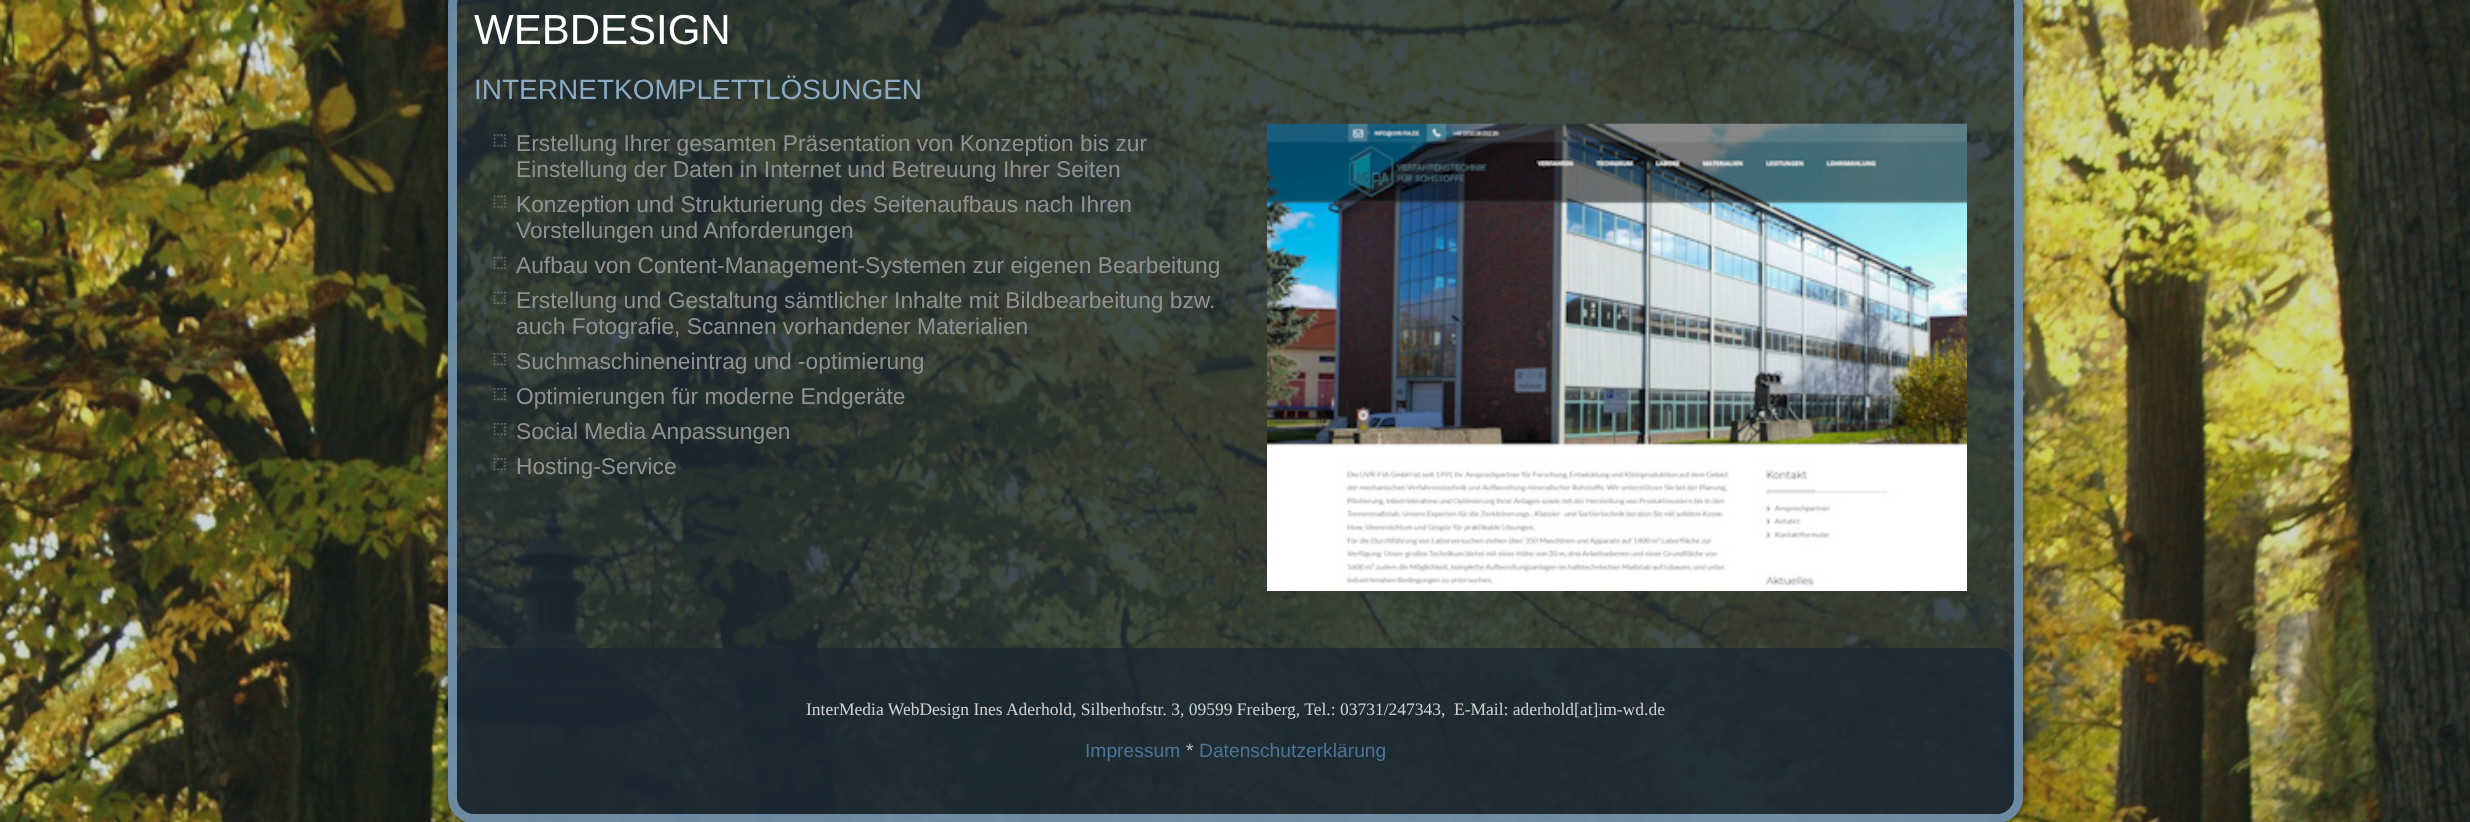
<!DOCTYPE html>
<meta charset="utf-8">
<style>body { margin: 0 } canvas { display: block }</style>
<canvas id="canvas" width="2470" height="822"></canvas>
<img id="img1" src="images/1.png" hidden>
<img id="img2" src="images/2.png" hidden>
<img id="img3" src="images/3.png" hidden>
<img id="img4" src="images/4.png" hidden>
<img id="img5" src="images/5.png" hidden>
<img id="img6" src="images/6.png" hidden>
<img id="img7" src="images/7.png" hidden>
<img id="img8" src="images/8.png" hidden>
<img id="img9" src="images/9.png" hidden>
<img id="img10" src="images/10.png" hidden>
<script>
window.onload = function () {
    const canvas = document.getElementById('canvas');
    const context = canvas.getContext('2d');
    context.miterLimit = 4;
    context.fontKerning = 'normal';

    context.fillStyle = 'rgb(255, 255, 255)';
    context.fillRect(0, 0, 2470, 822);
    context.drawImage(document.getElementById('img1'), 0, 0, 2470, 822);
    context.save();
    context.beginPath();
    context.moveTo(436, 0);
    context.lineTo(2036, 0);
    context.lineTo(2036, 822);
    context.lineTo(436, 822);
    context.closePath();
    context.moveTo(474, -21);
    context.lineTo(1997, -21);
    context.bezierCurveTo(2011.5, -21, 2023, -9.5, 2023, 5);
    context.lineTo(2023, 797);
    context.bezierCurveTo(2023, 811.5, 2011.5, 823, 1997, 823);
    context.lineTo(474, 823);
    context.bezierCurveTo(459.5, 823, 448, 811.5, 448, 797);
    context.lineTo(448, 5);
    context.bezierCurveTo(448, -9.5, 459.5, -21, 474, -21);
    context.closePath();
    context.clip('evenodd');
    context.fillStyle = 'rgba(0, 0, 0, 0.32)';
    context.filter = 'blur(2.5px)';
    context.beginPath();
    context.roundRect(445, -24, 1582, 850, 30);
    context.fill();
    context.filter = 'none';
    context.restore();
    context.fillStyle = 'rgba(26, 40, 51, 0.8)';
    context.beginPath();
    context.roundRect(448, -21, 1575, 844, 26);
    context.fill();
    context.beginPath();
    context.roundRect(452.5, -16.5, 1566, 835, 21.5);
    context.strokeStyle = 'rgba(125, 160, 189, 0.8)';
    context.lineWidth = 9;
    context.stroke();
    context.drawImage(document.getElementById('img2'), 493, 134, 13, 13);
    context.drawImage(document.getElementById('img3'), 493, 195, 13, 13);
    context.drawImage(document.getElementById('img4'), 493, 256, 13, 13);
    context.drawImage(document.getElementById('img5'), 493, 291, 13, 13);
    context.drawImage(document.getElementById('img6'), 493, 353, 13, 13);
    context.drawImage(document.getElementById('img7'), 493, 388, 13, 13);
    context.drawImage(document.getElementById('img8'), 493, 423, 13, 13);
    context.drawImage(document.getElementById('img9'), 493, 458, 13, 13);
    context.drawImage(document.getElementById('img10'), 1267, 123, 700, 468);
    context.beginPath();
    context.roundRect(457, 648, 1557, 166, 18);
    context.fill();
    context.font = '42px Liberation Sans';
    context.fillStyle = 'rgb(255, 255, 255)';
    context.fillText('WEBDESIGN', 474, 44);
    context.font = '28px Liberation Sans';
    context.fillStyle = 'rgb(139, 170, 196)';
    context.fillText('INTERNETKOMPLETTLÖSUNGEN', 474, 99);
    context.font = '22.75px Liberation Sans';
    context.fillStyle = 'rgb(145, 145, 145)';
    context.fillText('Erstellung Ihrer gesamten Präsentation von Konzeption bis zur', 516, 151);
    context.fillText('Einstellung der Daten in Internet und Betreuung Ihrer Seiten', 516, 177);
    context.fillText('Konzeption und Strukturierung des Seitenaufbaus nach Ihren', 516, 212);
    context.fillText('Vorstellungen und Anforderungen', 516, 238);
    context.fillText('Aufbau von Content-Management-Systemen zur eigenen Bearbeitung', 516, 273);
    context.fillText('Erstellung und Gestaltung sämtlicher Inhalte mit Bildbearbeitung bzw.', 516, 308);
    context.fillText('auch Fotografie, Scannen vorhandener Materialien', 516, 334);
    context.fillText('Suchmaschineneintrag und -optimierung', 516, 369);
    context.fillText('Optimierungen für moderne Endgeräte', 516, 404);
    context.fillText('Social Media Anpassungen', 516, 439);
    context.fillText('Hosting-Service', 516, 474);
    context.font = '17.5px Liberation Serif';
    context.fillStyle = 'rgb(209, 209, 209)';
    context.fillText('InterMedia WebDesign Ines Aderhold, Silberhofstr. 3, 09599 Freiberg, Tel.: 03731/247343,', 806, 715);
    context.fillText('E-Mail: aderhold[at]im-wd.de', 1454, 715);
    context.font = '19.25px Liberation Sans';
    context.fillStyle = 'rgb(77, 118, 151)';
    context.fillText('Impressum', 1085, 757);
    context.fillStyle = 'rgb(190, 190, 190)';
    context.fillText('*', 1186, 757);
    context.fillStyle = 'rgb(77, 118, 151)';
    context.fillText('Datenschutzerklärung', 1199, 757);
};
</script>
